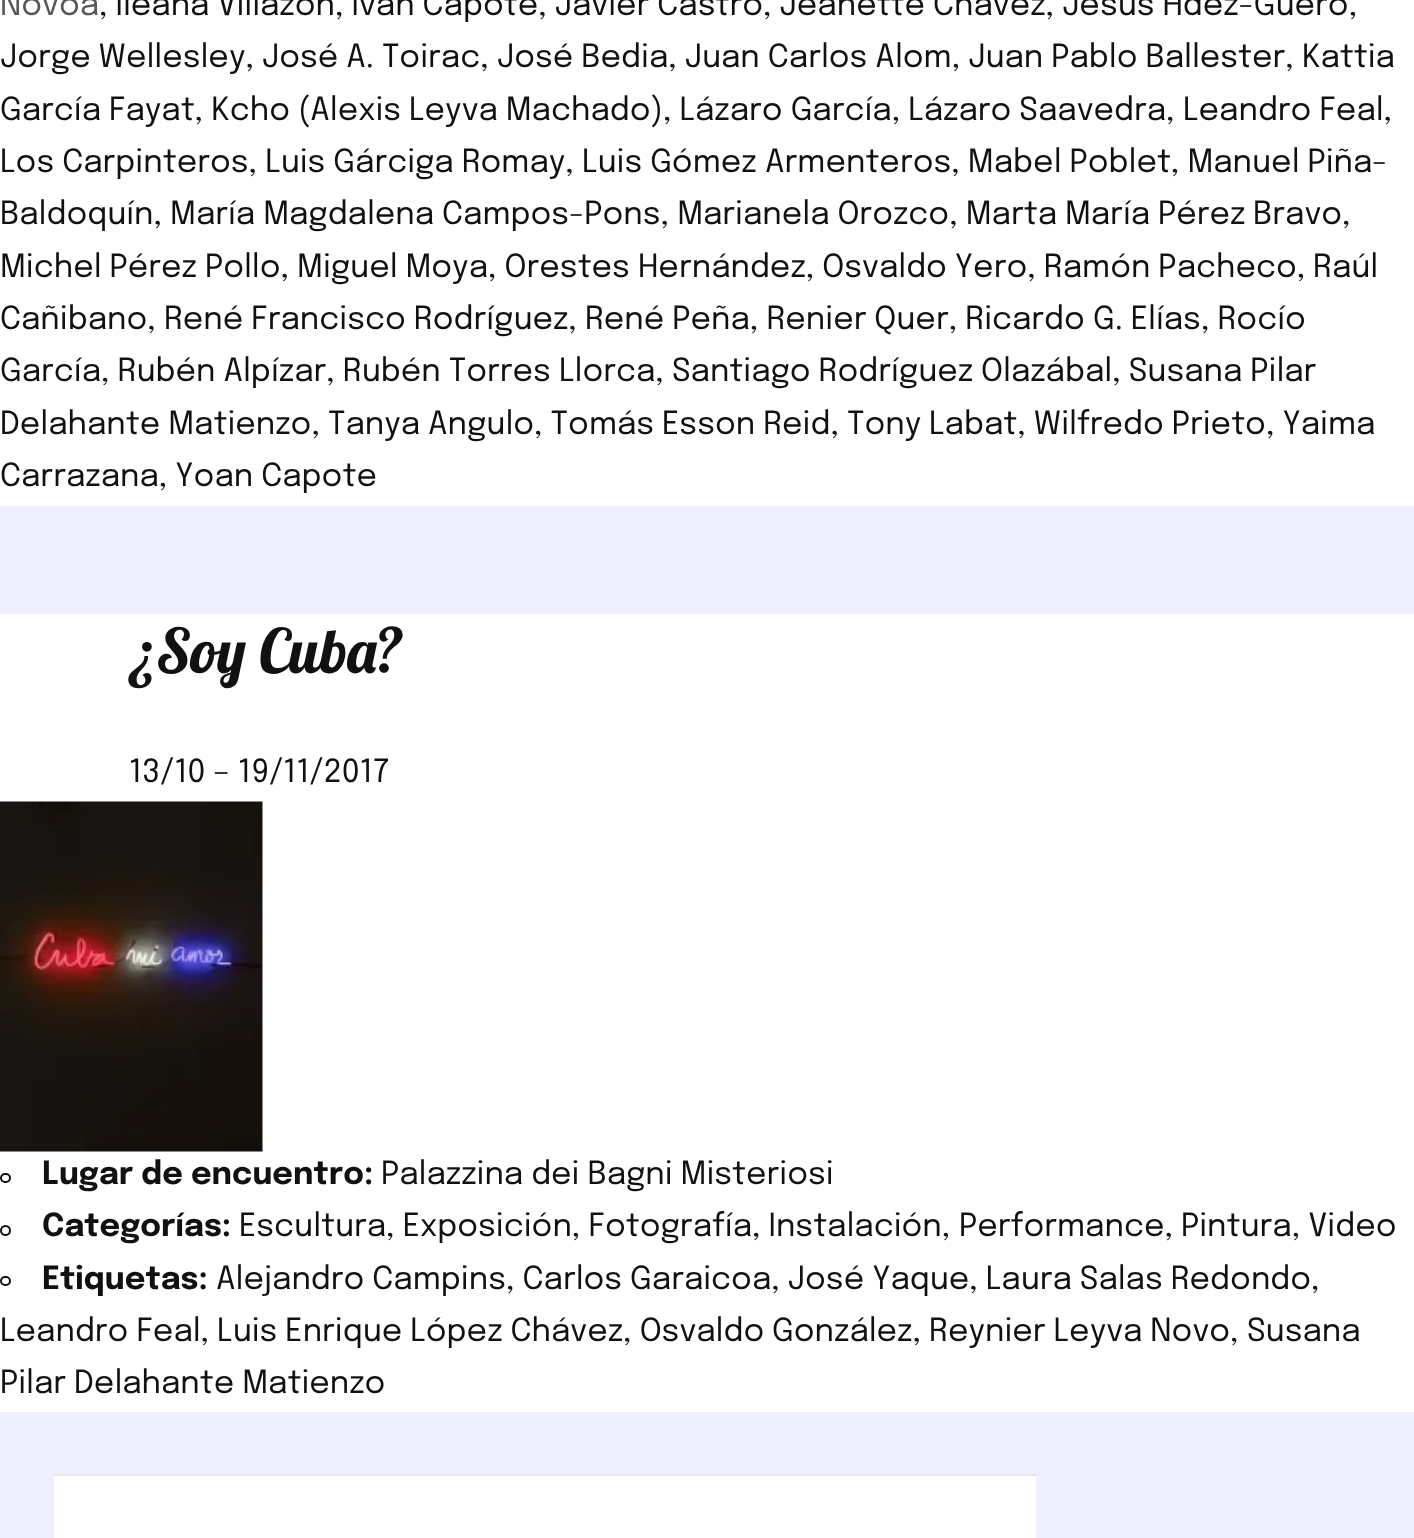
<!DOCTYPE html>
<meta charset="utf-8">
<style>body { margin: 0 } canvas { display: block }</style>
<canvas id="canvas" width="1414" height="1538"></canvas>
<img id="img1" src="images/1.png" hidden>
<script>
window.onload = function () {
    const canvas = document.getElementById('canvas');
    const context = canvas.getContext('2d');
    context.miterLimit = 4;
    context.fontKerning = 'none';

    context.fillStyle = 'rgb(240, 239, 255)';
    context.fillRect(0, 0, 1414, 1538);
    context.fillStyle = 'rgb(255, 255, 255)';
    context.fillRect(0, 0, 1414, 506);
    context.fillRect(0, 614, 1414, 798);
    context.drawImage(document.getElementById('img1'), 0, 801, 263, 351);
    context.beginPath();
    context.roundRect(1, 1174, 9, 8, 4);
    context.strokeStyle = 'rgb(17, 17, 17)';
    context.lineWidth = 2;
    context.stroke();
    context.beginPath();
    context.arc(5.5, 1230.5, 4.5, 0, 2 * Math.PI);
    context.stroke();
    context.beginPath();
    context.roundRect(1, 1277, 9, 8, 4);
    context.stroke();
    context.fillRect(54, 1476, 982, 62);
    context.fillStyle = 'rgb(231, 231, 231)';
    context.fillRect(54, 1474, 982, 2);
    context.font = '31.75px Epilogue';
    context.fillStyle = 'rgb(88, 88, 88)';
    context.fillText('Novoa', 0, 15);
    context.fillStyle = 'rgb(17, 17, 17)';
    context.fillText(', Ileana Villazón, Iván Capote, Javier Castro, Jeanette', 99, 15);
    context.fillText('Chavez, Jesús Hdez-Güero,', 933, 15);
    context.fillText('Jorge Wellesley, José A. Toirac,', 0, 67);
    context.fillText('José Bedia, Juan Carlos Alom, Juan Pablo Ballester, Kattia', 497, 67);
    context.fillText('García Fayat, Kcho (Alexis', 0, 120);
    context.fillText('Leyva Machado), Lázaro García, Lázaro Saavedra,', 409, 120);
    context.fillText('Leandro Feal,', 1183, 120);
    context.fillText('Los Carpinteros, Luis Gárciga Romay, Luis Gómez', 0, 172);
    context.fillText('Armenteros, Mabel Poblet, Manuel Piña-', 765, 172);
    context.fillText('Baldoquín, María Magdalena Campos-Pons, Marianela Orozco, Marta María Pérez', 0, 224);
    context.fillText('Bravo,', 1253, 224);
    context.fillText('Michel Pérez Pollo, Miguel Moya, Orestes', 0, 277);
    context.fillText('Hernández, Osvaldo Yero, Ramón Pacheco,', 638, 277);
    context.fillText('Raúl', 1313, 277);
    context.fillText('Cañibano, René Francisco Rodríguez, René Peña, Renier Quer, Ricardo', 0, 329);
    context.fillText('G. Elías, Rocío', 1093, 329);
    context.fillText('García, Rubén Alpízar, Rubén Torres', 0, 381);
    context.fillText('Llorca, Santiago Rodríguez Olazábal, Susana Pilar', 559, 381);
    context.fillText('Delahante Matienzo, Tanya', 0, 434);
    context.fillText('Angulo, Tomás Esson Reid, Tony', 428, 434);
    context.fillText('Labat, Wilfredo Prieto, Yaima', 929, 434);
    context.fillText('Carrazana, Yoan Capote', 0, 486);
    context.font = '61.25px Lobster';
    context.fillText('¿Soy Cuba?', 129, 673);
    context.font = '31.75px Epilogue';
    context.fillText('13/10 – 19/11/2017', 129, 782);
    context.font = 'bold 31.75px Epilogue';
    context.fillText('Lugar de encuentro:', 42, 1184);
    context.font = '31.75px Epilogue';
    context.fillText('Palazzina dei Bagni Misteriosi', 381, 1184);
    context.font = 'bold 31.75px Epilogue';
    context.fillText('Categorías:', 42, 1236);
    context.font = '31.75px Epilogue';
    context.fillText('Escultura, Exposición, Fotografía, Instalación,', 239, 1236);
    context.fillText('Performance, Pintura, Video', 959, 1236);
    context.font = 'bold 31.75px Epilogue';
    context.fillText('Etiquetas:', 42, 1289);
    context.font = '31.75px Epilogue';
    context.fillText('Alejandro Campins, Carlos Garaicoa, José Yaque, Laura Salas Redondo,', 216, 1289);
    context.fillText('Leandro Feal, Luis Enrique López Chávez, Osvaldo', 0, 1341);
    context.fillText('González, Reynier Leyva Novo,', 772, 1341);
    context.fillText('Susana', 1247, 1341);
    context.fillText('Pilar Delahante Matienzo', 0, 1393);
};
</script>
